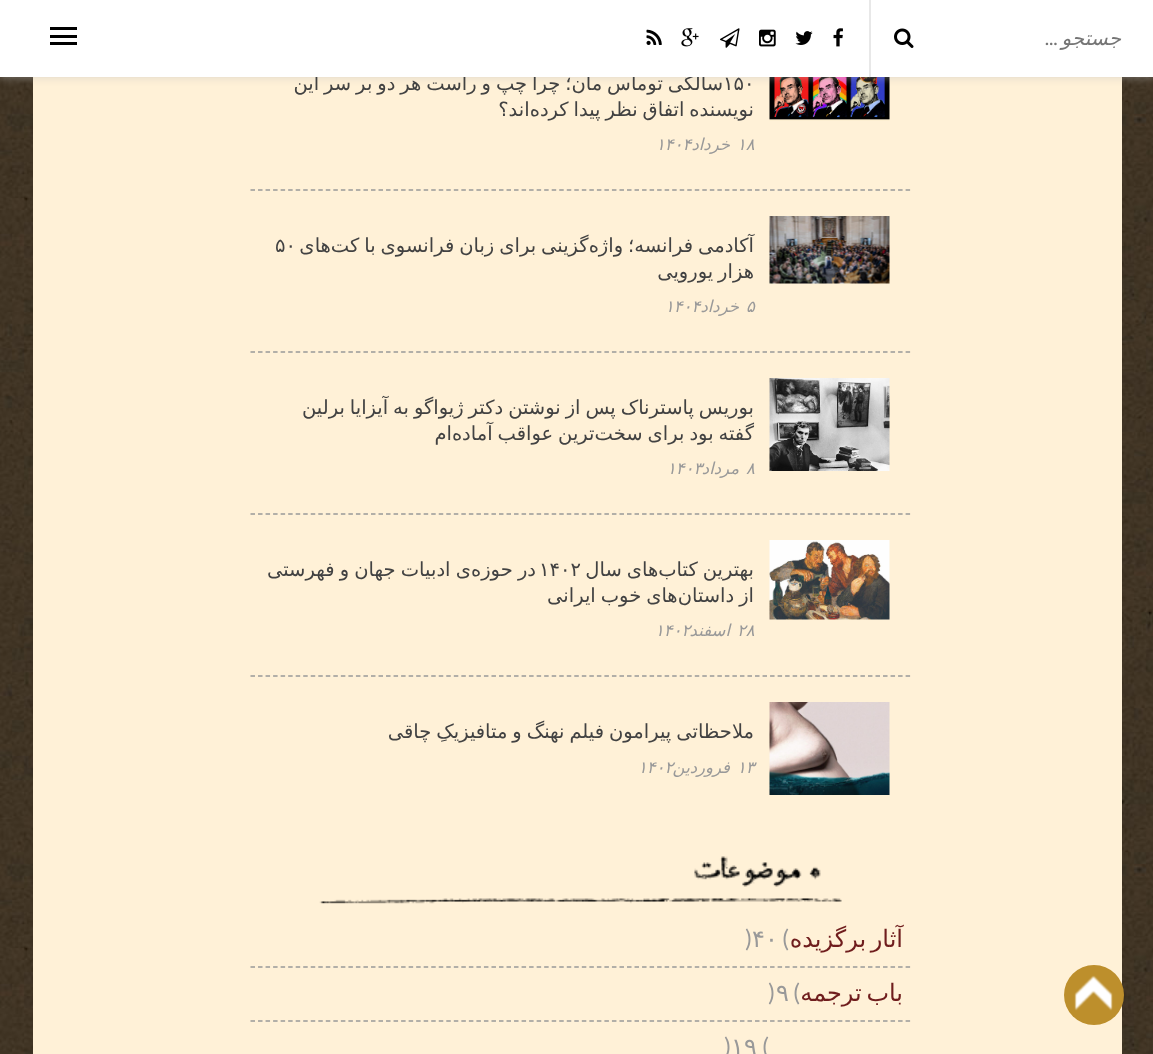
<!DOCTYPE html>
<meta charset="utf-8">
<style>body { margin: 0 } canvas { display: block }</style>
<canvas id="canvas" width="1153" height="1054"></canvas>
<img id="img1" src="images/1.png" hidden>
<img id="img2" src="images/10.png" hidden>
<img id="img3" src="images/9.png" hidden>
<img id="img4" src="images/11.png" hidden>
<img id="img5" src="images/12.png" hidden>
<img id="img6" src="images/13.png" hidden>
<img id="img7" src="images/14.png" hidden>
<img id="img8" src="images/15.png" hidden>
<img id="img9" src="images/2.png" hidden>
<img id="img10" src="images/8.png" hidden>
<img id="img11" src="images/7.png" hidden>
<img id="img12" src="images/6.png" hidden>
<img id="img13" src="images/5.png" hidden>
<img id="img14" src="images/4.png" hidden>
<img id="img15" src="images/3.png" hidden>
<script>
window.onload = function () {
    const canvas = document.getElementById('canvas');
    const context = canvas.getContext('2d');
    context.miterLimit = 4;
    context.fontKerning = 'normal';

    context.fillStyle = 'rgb(255, 255, 255)';
    context.fillRect(0, 0, 1153, 1054);
    context.drawImage(document.getElementById('img1'), 0, 77, 1153, 977);
    context.fillStyle = 'rgb(255, 241, 215)';
    context.fillRect(33, 77, 1089, 977);
    context.drawImage(document.getElementById('img2'), 769, 77, 121, 44);
    context.fillStyle = 'rgba(190, 190, 190, 0.46)';
    context.filter = 'blur(4px)';
    context.beginPath();
    context.rect(0, 2, 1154, 76);
    context.fill();
    context.filter = 'none';
    context.fillStyle = 'rgb(189, 143, 44)';
    context.beginPath();
    context.arc(1094, 995, 30, 0, 2 * Math.PI);
    context.fill();
    context.drawImage(document.getElementById('img3'), 1074, 975, 39, 36);
    context.beginPath();
    context.moveTo(250.5, 190);
    context.lineTo(910.5, 190);
    context.strokeStyle = 'rgb(153, 153, 153)';
    context.lineWidth = 1.5;
    context.setLineDash([4.5, 3.03]);
    context.stroke();
    context.beginPath();
    context.moveTo(250.5, 352);
    context.lineTo(910.5, 352);
    context.stroke();
    context.drawImage(document.getElementById('img4'), 769, 216, 121, 68);
    context.beginPath();
    context.moveTo(250.5, 514);
    context.lineTo(910.5, 514);
    context.stroke();
    context.drawImage(document.getElementById('img5'), 769, 378, 121, 93);
    context.beginPath();
    context.moveTo(250.5, 676);
    context.lineTo(910.5, 676);
    context.stroke();
    context.drawImage(document.getElementById('img6'), 769, 540, 121, 80);
    context.drawImage(document.getElementById('img7'), 769, 702, 121, 93);
    context.drawImage(document.getElementById('img8'), 319, 856, 523, 48);
    context.beginPath();
    context.moveTo(250.5, 967);
    context.lineTo(910.5, 967);
    context.stroke();
    context.beginPath();
    context.moveTo(250.5, 1021);
    context.lineTo(910.5, 1021);
    context.stroke();
    context.wordSpacing = '-1.25px';
    context.direction = 'rtl';
    context.font = '19.5px DejaVu Sans';
    context.fillStyle = 'rgb(66, 66, 66)';
    context.fillText('سالگی توماس مان؛ چرا چپ و راست هر دو بر سر این', 723, 90);
    context.fillStyle = 'rgb(255, 255, 255)';
    context.fillRect(0, 0, 1153, 77);
    context.drawImage(document.getElementById('img9'), 894, 28, 20, 20);
    context.wordSpacing = '0px';
    context.font = 'italic 20px DejaVu Sans';
    context.fillStyle = 'rgb(117, 117, 117)';
    context.fillText('جستجو', 1121, 45);
    context.font = 'italic 20px Lato';
    context.fillText('...', 1058, 45);
    context.fillStyle = 'rgb(232, 232, 232)';
    context.fillRect(869, 0, 2, 77);
    context.drawImage(document.getElementById('img10'), 646, 29, 16, 16);
    context.drawImage(document.getElementById('img11'), 681, 28, 18, 19);
    context.drawImage(document.getElementById('img12'), 720, 28, 20, 20);
    context.drawImage(document.getElementById('img13'), 759, 29, 17, 18);
    context.drawImage(document.getElementById('img14'), 795, 31, 18, 14);
    context.drawImage(document.getElementById('img15'), 833, 28, 10, 19);
    context.fillStyle = 'rgb(0, 0, 0)';
    context.fillRect(50, 42, 27, 3);
    context.fillRect(50, 35, 27, 3);
    context.fillRect(50, 27, 27, 3);
    context.direction = 'ltr';
    context.font = '19.5px DejaVu Sans';
    context.fillStyle = 'rgb(66, 66, 66)';
    context.fillText('۱۵۰', 723, 90);
    context.wordSpacing = '-1.25px';
    context.direction = 'rtl';
    context.fillText('نویسنده اتفاق نظر پیدا کرده‌اند؟', 754, 116);
    context.wordSpacing = '0px';
    context.direction = 'ltr';
    context.font = 'italic 16.5px DejaVu Sans';
    context.fillStyle = 'rgb(153, 153, 153)';
    context.fillText('۱۸', 737, 150);
    context.fillText('۱۴۰۴', 656, 150);
    context.direction = 'rtl';
    context.fillText('خرداد', 730, 150);
    context.wordSpacing = '-1.25px';
    context.font = '19.5px DejaVu Sans';
    context.fillStyle = 'rgb(66, 66, 66)';
    context.fillText('آکادمی فرانسه؛ واژه‌گزینی برای زبان فرانسوی با کت‌های', 754, 252);
    context.wordSpacing = '0px';
    context.direction = 'ltr';
    context.fillText('۵۰', 275, 252);
    context.wordSpacing = '-1.25px';
    context.direction = 'rtl';
    context.fillText('هزار یورویی', 754, 278);
    context.wordSpacing = '0px';
    context.direction = 'ltr';
    context.font = 'italic 16.5px DejaVu Sans';
    context.fillStyle = 'rgb(153, 153, 153)';
    context.fillText('۵', 746, 312);
    context.fillText('۱۴۰۴', 665, 312);
    context.direction = 'rtl';
    context.fillText('خرداد', 739, 312);
    context.wordSpacing = '-1.25px';
    context.font = '19.5px DejaVu Sans';
    context.fillStyle = 'rgb(66, 66, 66)';
    context.fillText('بوریس پاسترناک پس از نوشتن دکتر ژیواگو به آیزایا برلین', 754, 414);
    context.fillText('گفته بود برای سخت‌ترین عواقب آماده‌ام', 754, 440);
    context.wordSpacing = '0px';
    context.direction = 'ltr';
    context.font = 'italic 16.5px DejaVu Sans';
    context.fillStyle = 'rgb(153, 153, 153)';
    context.fillText('۸', 746, 474);
    context.fillText('۱۴۰۳', 667, 474);
    context.direction = 'rtl';
    context.fillText('مرداد', 739, 474);
    context.wordSpacing = '-1.25px';
    context.font = '19.5px DejaVu Sans';
    context.fillStyle = 'rgb(66, 66, 66)';
    context.fillText('بهترین کتاب‌های سال', 754, 576);
    context.wordSpacing = '0px';
    context.direction = 'ltr';
    context.fillText('۱۴۰۲', 539, 576);
    context.wordSpacing = '-1px';
    context.direction = 'rtl';
    context.fillText('در حوزه‌ی ادبیات جهان و فهرستی', 536, 576);
    context.wordSpacing = '-1.25px';
    context.fillText('از داستان‌های خوب ایرانی', 754, 602);
    context.wordSpacing = '0px';
    context.direction = 'ltr';
    context.font = 'italic 16.5px DejaVu Sans';
    context.fillStyle = 'rgb(153, 153, 153)';
    context.fillText('۲۸', 737, 636);
    context.fillText('۱۴۰۲', 655, 636);
    context.direction = 'rtl';
    context.fillText('اسفند', 730, 636);
    context.wordSpacing = '-1.25px';
    context.font = '19.5px DejaVu Sans';
    context.fillStyle = 'rgb(66, 66, 66)';
    context.fillText('ملاحظاتی پیرامون فیلم نهنگ و متافیزیکِ چاقی', 754, 738);
    context.wordSpacing = '0px';
    context.direction = 'ltr';
    context.font = 'italic 16.5px DejaVu Sans';
    context.fillStyle = 'rgb(153, 153, 153)';
    context.fillText('۱۳', 737, 773);
    context.fillText('۱۴۰۲', 638, 773);
    context.direction = 'rtl';
    context.fillText('فروردین', 730, 773);
    context.wordSpacing = '-3px';
    context.font = '24px DejaVu Sans';
    context.fillStyle = 'rgb(111, 29, 29)';
    context.fillText('آثار برگزیده', 903, 947);
    context.wordSpacing = '0px';
    context.direction = 'ltr';
    context.font = '24px Lato';
    context.fillStyle = 'rgb(153, 153, 153)';
    context.fillText('(', 782, 947);
    context.font = '24px DejaVu Sans';
    context.fillText('۴۰', 752, 947);
    context.font = '24px Lato';
    context.fillText(')', 745, 947);
    context.wordSpacing = '-3px';
    context.direction = 'rtl';
    context.font = '24px DejaVu Sans';
    context.fillStyle = 'rgb(111, 29, 29)';
    context.fillText('باب ترجمه', 903, 1001);
    context.wordSpacing = '0px';
    context.direction = 'ltr';
    context.font = '24px Lato';
    context.fillStyle = 'rgb(153, 153, 153)';
    context.fillText('(', 793, 1001);
    context.font = '24px DejaVu Sans';
    context.fillText('۹', 776, 1001);
    context.font = '24px Lato';
    context.fillText(')', 768, 1001);
    context.fillText('(', 762, 1055);
    context.font = '24px DejaVu Sans';
    context.fillText('۱۹', 731, 1055);
    context.font = '24px Lato';
    context.fillText(')', 724, 1055);
};
</script>
